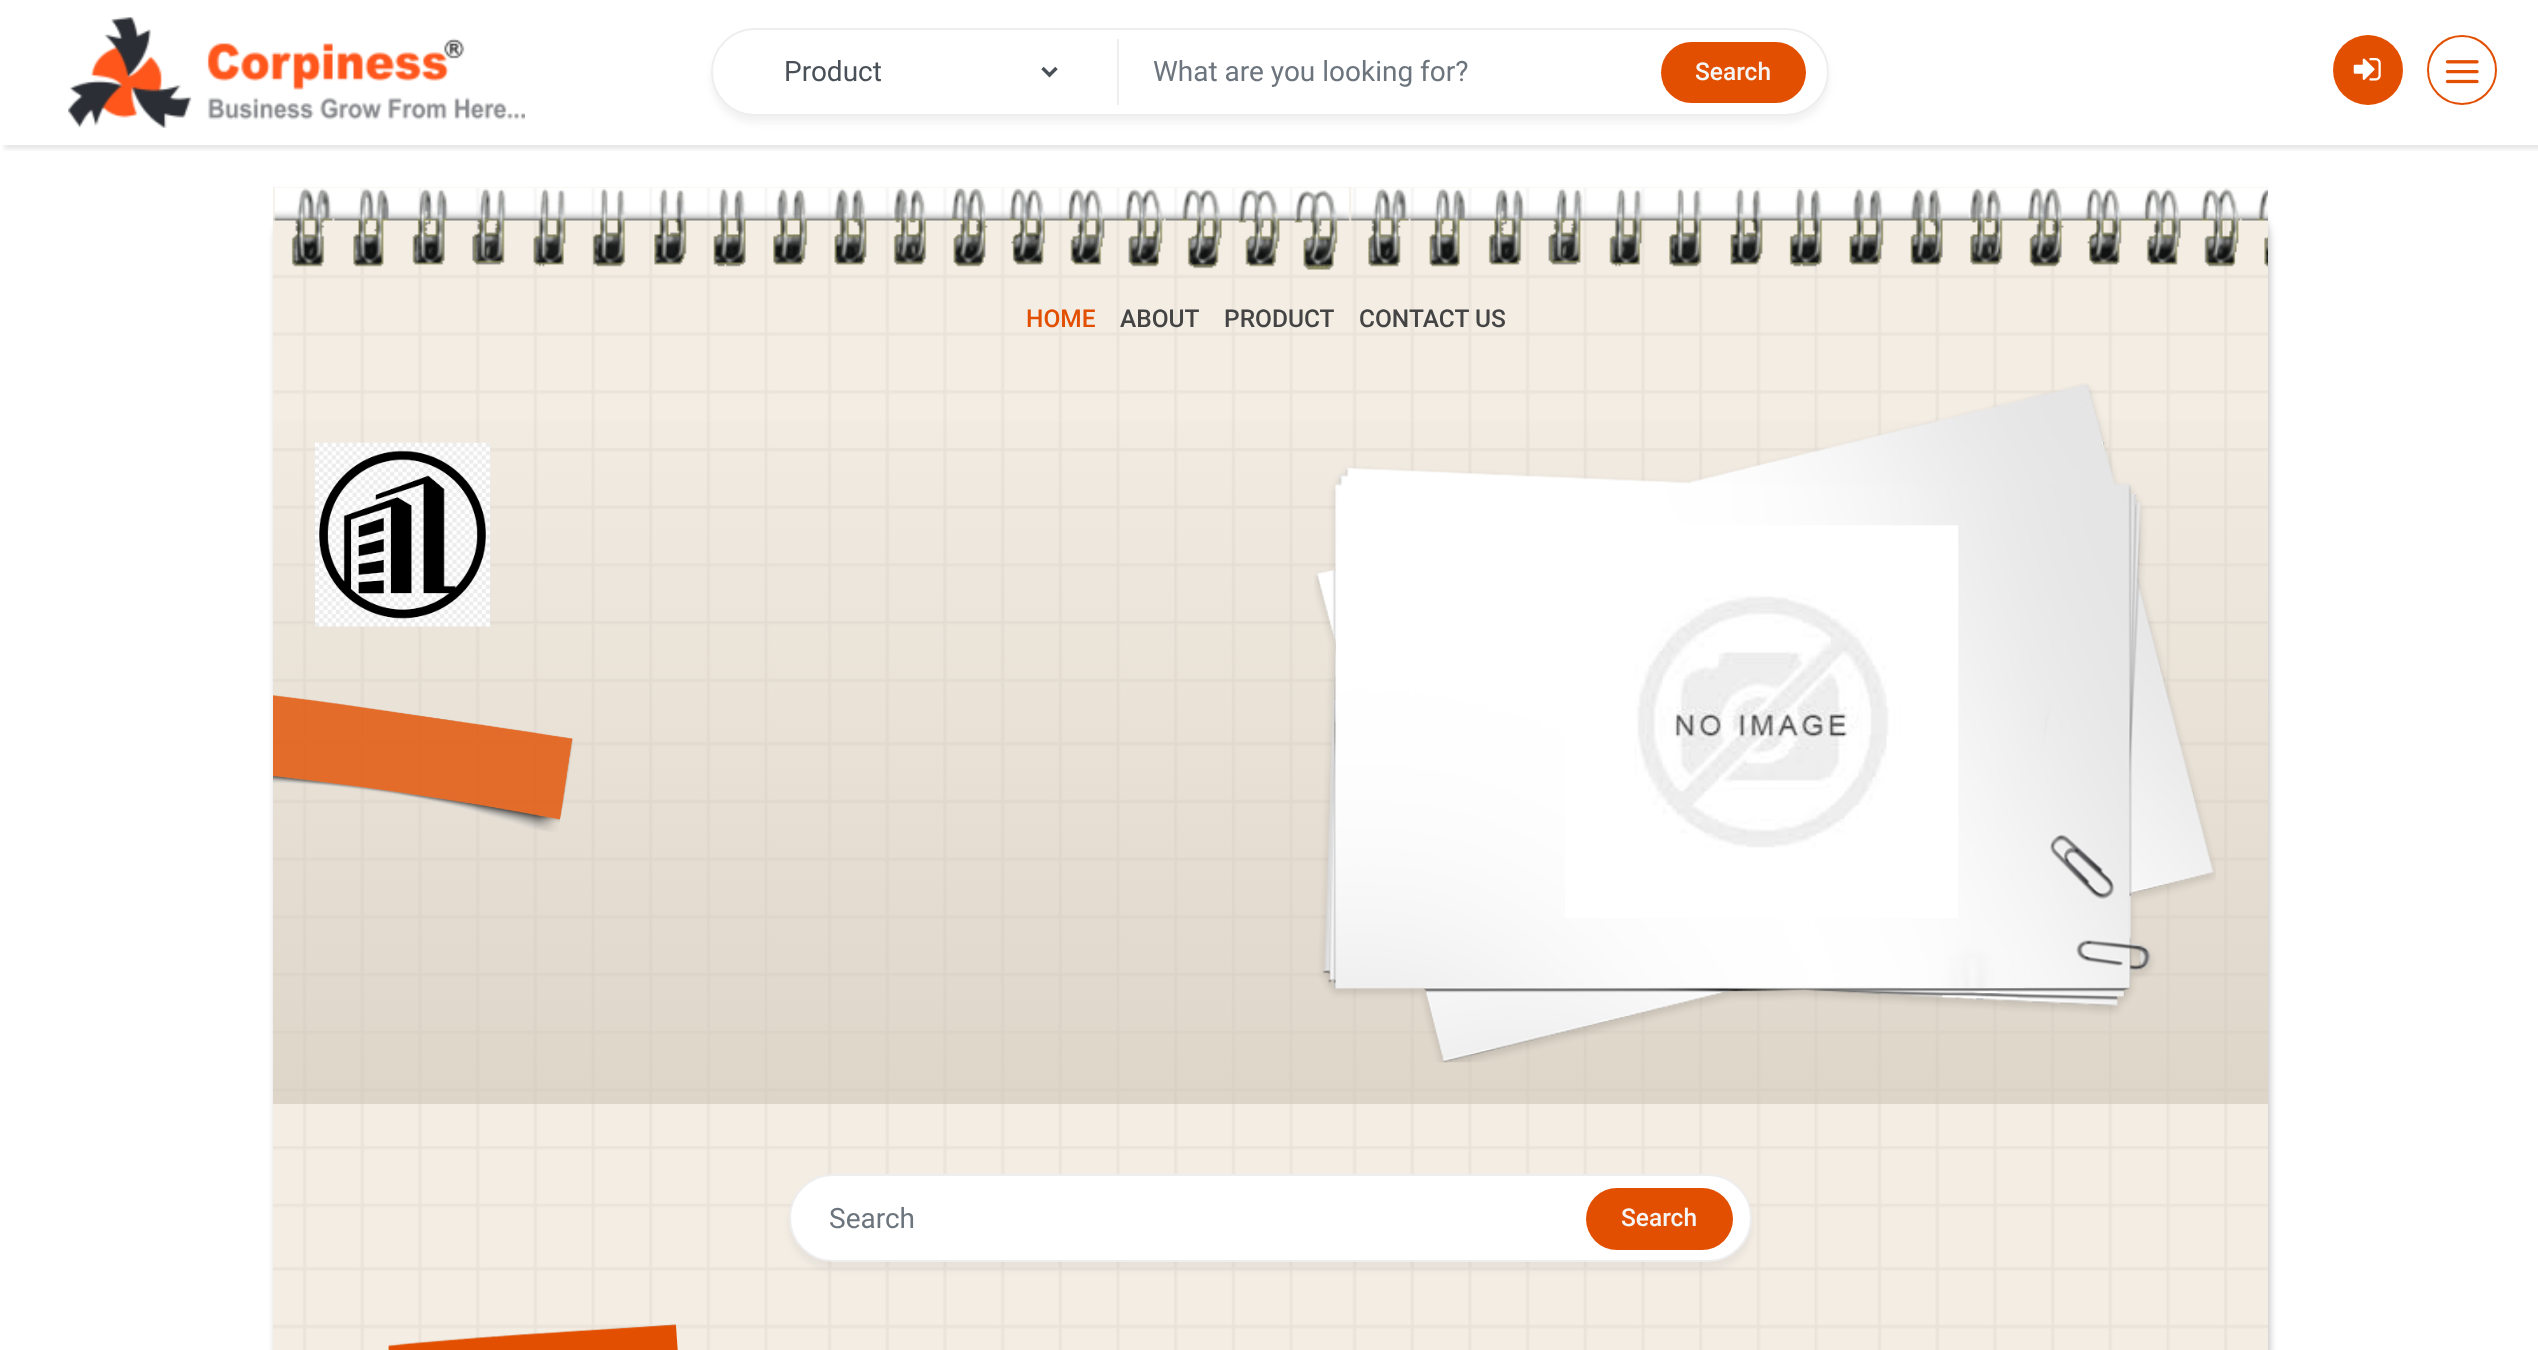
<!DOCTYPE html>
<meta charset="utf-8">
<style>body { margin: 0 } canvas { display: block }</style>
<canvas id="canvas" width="2538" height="1350"></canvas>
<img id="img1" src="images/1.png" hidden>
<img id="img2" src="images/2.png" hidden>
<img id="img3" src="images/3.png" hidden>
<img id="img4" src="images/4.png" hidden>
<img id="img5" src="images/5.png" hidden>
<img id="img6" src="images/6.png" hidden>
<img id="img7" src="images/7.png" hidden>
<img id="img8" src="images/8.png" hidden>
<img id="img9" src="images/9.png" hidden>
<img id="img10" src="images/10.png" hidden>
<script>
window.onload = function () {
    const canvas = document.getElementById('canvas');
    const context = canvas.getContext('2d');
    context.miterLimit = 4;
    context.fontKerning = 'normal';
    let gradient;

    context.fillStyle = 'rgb(255, 255, 255)';
    context.fillRect(0, 0, 2538, 1350);
    context.save();
    context.beginPath();
    context.rect(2, 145, 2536, 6);
    context.clip();
    context.fillStyle = 'rgba(0, 0, 0, 0.1)';
    context.filter = 'blur(2.5px)';
    context.beginPath();
    context.rect(4, 4, 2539, 145);
    context.fill();
    context.filter = 'none';
    context.restore();
    context.drawImage(document.getElementById('img1'), 68, 17, 457, 111);
    context.fillStyle = 'rgba(127, 127, 127, 0.1)';
    context.filter = 'blur(3.5px)';
    context.beginPath();
    context.roundRect(711, 35, 1118, 88, 44);
    context.fill();
    context.filter = 'none';
    context.fillStyle = 'rgb(255, 255, 255)';
    context.beginPath();
    context.roundRect(712, 29, 1116, 86, 43);
    context.fill();
    context.strokeStyle = 'rgb(238, 238, 238)';
    context.lineWidth = 2;
    context.stroke();
    context.beginPath();
    context.moveTo(1042.5, 68);
    context.lineTo(1049.5, 75);
    context.lineTo(1056.5, 68);
    context.strokeStyle = 'rgb(73, 80, 87)';
    context.lineWidth = 3.5;
    context.stroke();
    context.fillStyle = 'rgb(238, 238, 238)';
    context.fillRect(1117, 39, 2, 66);
    context.fillStyle = 'rgb(227, 79, 0)';
    context.beginPath();
    context.roundRect(1661, 42, 145, 61, 30.5);
    context.fill();
    context.beginPath();
    context.arc(2368, 70, 35, 0, 2 * Math.PI);
    context.fill();
    context.drawImage(document.getElementById('img2'), 2353, 58, 28, 23);
    context.beginPath();
    context.arc(2462, 70, 34, 0, 2 * Math.PI);
    context.strokeStyle = 'rgb(227, 79, 0)';
    context.lineWidth = 2;
    context.stroke();
    context.drawImage(document.getElementById('img3'), 2445, 60, 34, 24);
    context.fillStyle = 'rgb(197, 197, 197)';
    context.filter = 'blur(3.5px)';
    context.beginPath();
    context.roundRect(275, 196, 1995, 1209, 44);
    context.fill();
    context.filter = 'none';
    context.fillStyle = 'rgb(243, 237, 228)';
    context.fillRect(273, 187, 1995, 1163);
    context.drawImage(document.getElementById('img4'), 273, 187, 1995, 83);
    context.drawImage(document.getElementById('img5'), 273, 188, 1995, 1162);
    gradient = context.createLinearGradient(1271, 1104, 1271, 366);
    gradient.addColorStop(0, 'rgba(205, 194, 178, 0.55)');
    gradient.addColorStop(1, 'rgba(205, 194, 178, 0)');
    context.fillStyle = gradient;
    context.fillRect(273, 421, 1995, 683);
    context.drawImage(document.getElementById('img6'), 315, 442, 175, 185);
    context.drawImage(document.getElementById('img7'), 273, 695, 300, 137);
    context.drawImage(document.getElementById('img8'), 1314, 383, 902, 680);
    context.drawImage(document.getElementById('img9'), 1565, 525, 394, 393);
    context.fillStyle = 'rgba(127, 127, 127, 0.1)';
    context.filter = 'blur(3.5px)';
    context.beginPath();
    context.roundRect(789, 1181, 963, 88, 44);
    context.fill();
    context.filter = 'none';
    context.fillStyle = 'rgb(255, 255, 255)';
    context.beginPath();
    context.roundRect(790, 1175, 961, 86, 43);
    context.fill();
    context.strokeStyle = 'rgb(238, 238, 238)';
    context.stroke();
    context.fillStyle = 'rgb(227, 79, 0)';
    context.beginPath();
    context.roundRect(1586, 1188, 147, 62, 31);
    context.fill();
    context.drawImage(document.getElementById('img10'), 388, 1324, 290, 26);
    context.font = '28px Roboto';
    context.fillStyle = 'rgb(73, 80, 87)';
    context.fillText('Product', 784, 81);
    context.fillStyle = 'rgb(108, 117, 125)';
    context.fillText('What are you looking for?', 1153, 81);
    context.font = '500 24.5px Roboto';
    context.fillStyle = 'rgb(245, 245, 245)';
    context.fillText('Search', 1695, 80);
    context.fillStyle = 'rgb(227, 79, 0)';
    context.fillText('HOME', 1026, 327);
    context.fillStyle = 'rgb(68, 68, 68)';
    context.fillText('ABOUT', 1120, 327);
    context.fillText('PRODUCT', 1224, 327);
    context.fillText('CONTACT US', 1359, 327);
    context.font = '28px Roboto';
    context.fillStyle = 'rgb(108, 117, 125)';
    context.fillText('Search', 829, 1228);
    context.font = '500 24.5px Roboto';
    context.fillStyle = 'rgb(245, 245, 245)';
    context.fillText('Search', 1621, 1226);
};
</script>
